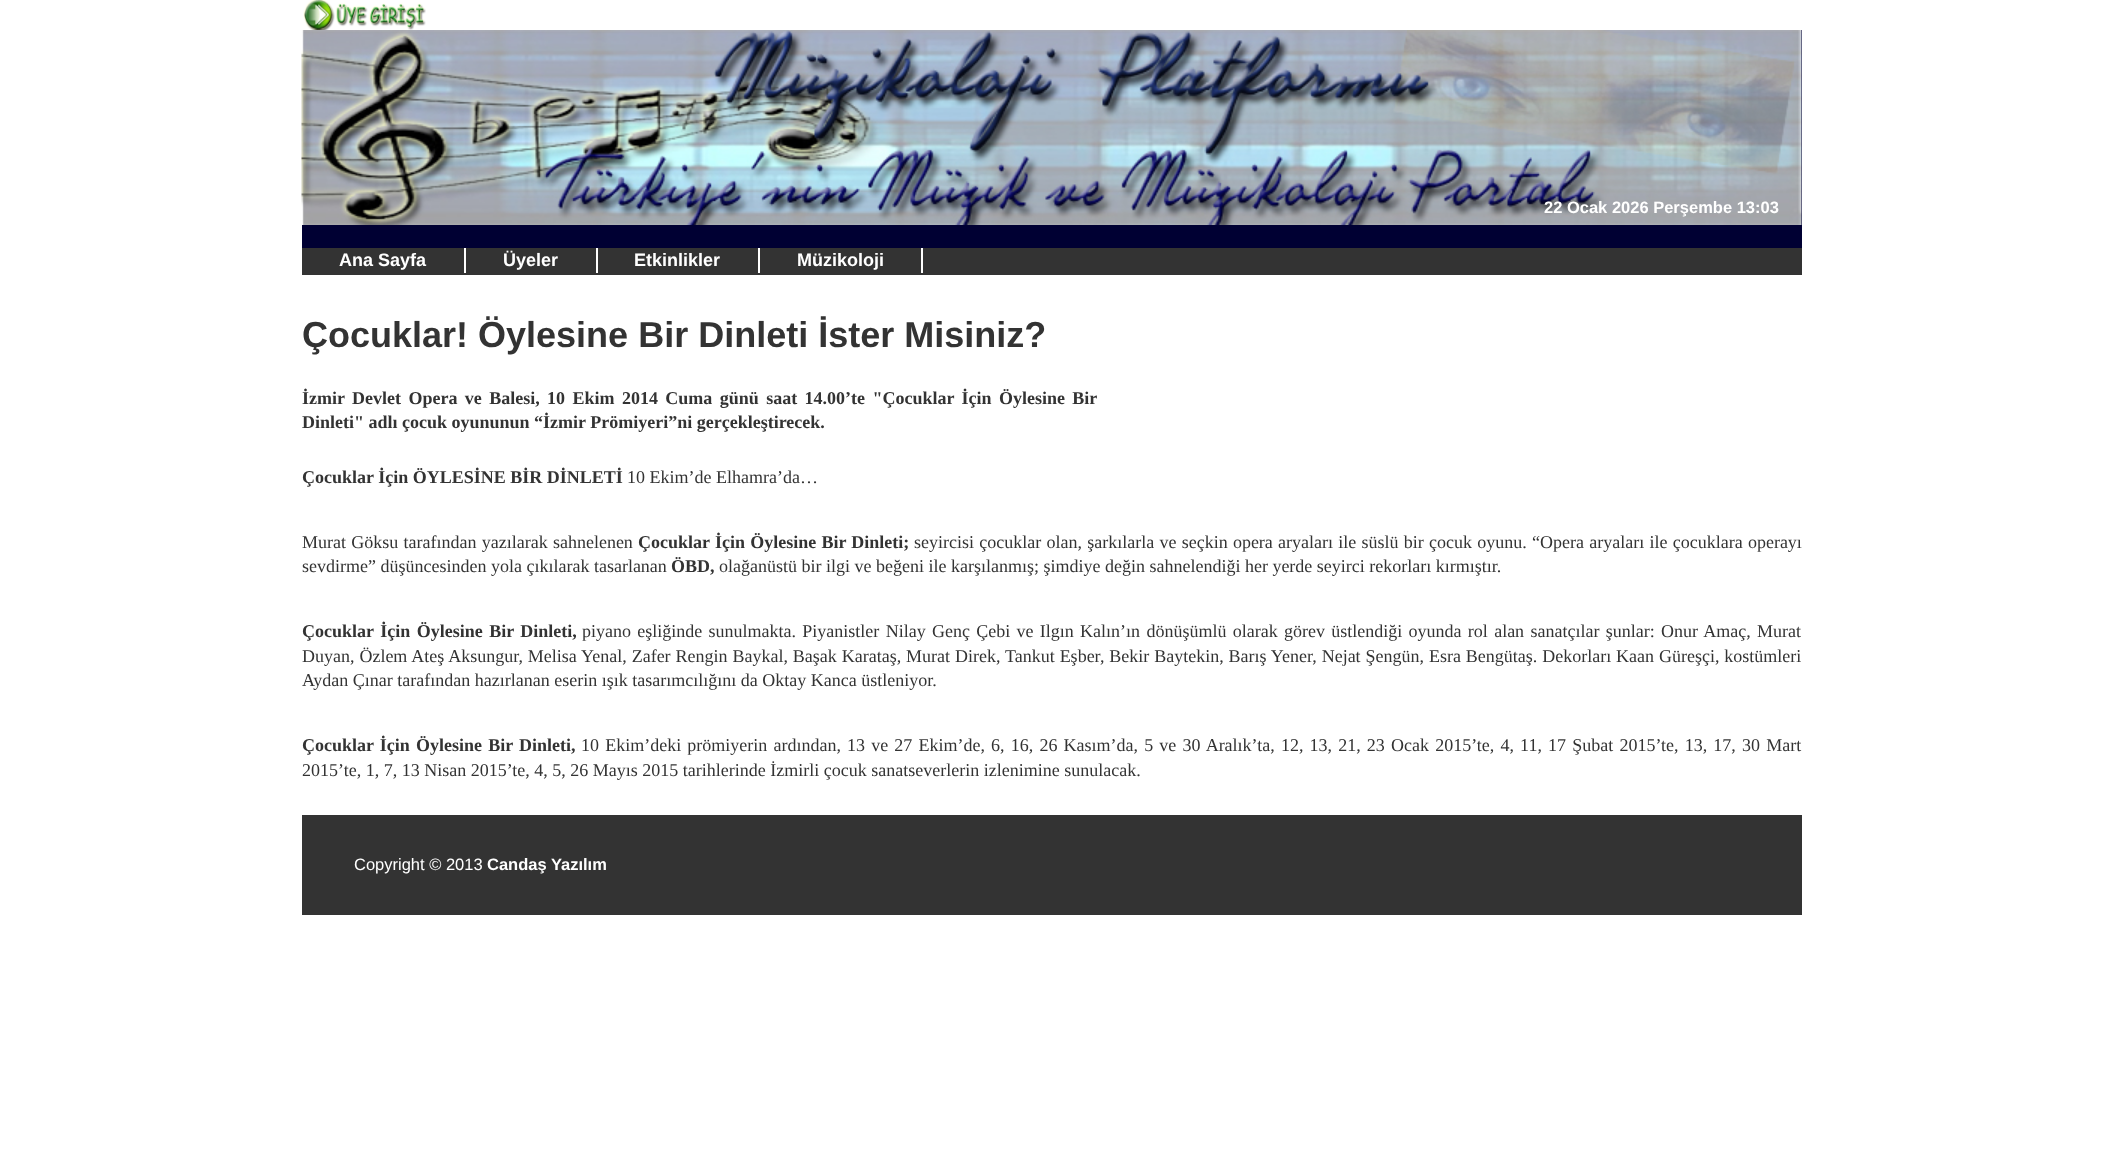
<!DOCTYPE html>
<meta charset="utf-8">
<style>body { margin: 0 } canvas { display: block }</style>
<canvas id="canvas" width="2103" height="1156"></canvas>
<img id="img1" src="images/1.png" hidden>
<img id="img2" src="images/2.png" hidden>
<script>
window.onload = function () {
    const canvas = document.getElementById('canvas');
    const context = canvas.getContext('2d');
    context.miterLimit = 4;
    context.fontKerning = 'normal';

    context.fillStyle = 'rgb(255, 255, 255)';
    context.fillRect(0, 0, 2103, 1156);
    context.drawImage(document.getElementById('img1'), 303, 0, 123, 30);
    context.fillStyle = 'rgb(0, 0, 51)';
    context.fillRect(302, 30, 1500, 218);
    context.drawImage(document.getElementById('img2'), 301, 30, 1501, 195);
    context.fillStyle = 'rgb(51, 51, 51)';
    context.fillRect(302, 248, 1500, 27);
    context.fillStyle = 'rgb(255, 255, 255)';
    context.fillRect(464, 248, 2, 25);
    context.fillRect(596, 248, 2, 25);
    context.fillRect(758, 248, 2, 25);
    context.fillRect(921, 248, 2, 25);
    context.fillStyle = 'rgb(51, 51, 51)';
    context.fillRect(302, 815, 1500, 100);
    context.font = 'bold 16.5px Liberation Sans';
    context.fillStyle = 'rgb(255, 255, 255)';
    context.fillText('22 Ocak 2026 Perşembe 13:03', 1544, 213);
    context.font = 'bold 18px Liberation Sans';
    context.fillText('Ana Sayfa', 339, 266);
    context.fillText('Üyeler', 503, 266);
    context.fillText('Etkinlikler', 634, 266);
    context.fillText('Müzikoloji', 797, 266);
    context.font = 'bold 36px Liberation Sans';
    context.fillStyle = 'rgb(51, 51, 51)';
    context.fillText('Çocuklar! Öylesine Bir Dinleti İster Misiniz?', 302, 347);
    context.wordSpacing = '2.9px';
    context.font = 'bold 18px Liberation Serif';
    context.fillText('İzmir Devlet Opera ve Balesi, 10 Ekim 2014 Cuma günü saat 14.00’te "Çocuklar İçin Öylesine Bir', 302, 404);
    context.wordSpacing = '0px';
    context.fillText('Dinleti" adlı çocuk oyununun “İzmir Prömiyeri”ni gerçekleştirecek.', 302, 428);
    context.fillText('Çocuklar İçin ÖYLESİNE BİR DİNLETİ', 302, 483);
    context.font = '18px Liberation Serif';
    context.fillText('10 Ekim’de Elhamra’da…', 627, 483);
    context.wordSpacing = '0.75px';
    context.fillText('Murat Göksu tarafından yazılarak sahnelenen', 302, 548);
    context.font = 'bold 18px Liberation Serif';
    context.fillText('Çocuklar İçin Öylesine Bir Dinleti;', 638, 548);
    context.font = '18px Liberation Serif';
    context.fillText('seyircisi çocuklar olan, şarkılarla ve seçkin opera aryaları ile süslü bir çocuk oyunu. “Opera aryaları ile çocuklara operayı', 914, 548);
    context.wordSpacing = '0px';
    context.fillText('sevdirme” düşüncesinden yola çıkılarak tasarlanan', 302, 572);
    context.font = 'bold 18px Liberation Serif';
    context.fillText('ÖBD,', 671, 572);
    context.font = '18px Liberation Serif';
    context.fillText('olağanüstü bir ilgi ve beğeni ile karşılanmış; şimdiye değin sahnelendiği her yerde seyirci rekorları kırmıştır.', 719, 572);
    context.wordSpacing = '2px';
    context.font = 'bold 18px Liberation Serif';
    context.fillText('Çocuklar İçin Öylesine Bir Dinleti,', 302, 637);
    context.wordSpacing = '1.8px';
    context.font = '18px Liberation Serif';
    context.fillText('piyano eşliğinde sunulmakta. Piyanistler Nilay Genç Çebi ve Ilgın Kalın’ın dönüşümlü olarak görev üstlendiği oyunda rol alan sanatçılar şunlar: Onur Amaç, Murat', 582, 637);
    context.wordSpacing = '0.4px';
    context.fillText('Duyan, Özlem Ateş Aksungur, Melisa Yenal, Zafer Rengin Baykal, Başak Karataş, Murat Direk, Tankut Eşber, Bekir Baytekin, Barış Yener, Nejat Şengün, Esra Bengütaş. Dekorları Kaan Güreşçi, kostümleri', 302, 662);
    context.wordSpacing = '0px';
    context.fillText('Aydan Çınar tarafından hazırlanan eserin ışık tasarımcılığını da Oktay Kanca üstleniyor.', 302, 686);
    context.wordSpacing = '1.65px';
    context.font = 'bold 18px Liberation Serif';
    context.fillText('Çocuklar İçin Öylesine Bir Dinleti,', 302, 751);
    context.font = '18px Liberation Serif';
    context.fillText('10 Ekim’deki prömiyerin ardından, 13 ve 27 Ekim’de, 6, 16, 26 Kasım’da, 5 ve 30 Aralık’ta, 12, 13, 21, 23 Ocak 2015’te, 4, 11, 17 Şubat 2015’te, 13, 17, 30 Mart', 581, 751);
    context.wordSpacing = '0px';
    context.fillText('2015’te, 1, 7, 13 Nisan 2015’te, 4, 5, 26 Mayıs 2015 tarihlerinde İzmirli çocuk sanatseverlerin izlenimine sunulacak.', 302, 776);
    context.font = '16.5px Liberation Sans';
    context.fillStyle = 'rgb(255, 255, 255)';
    context.fillText('Copyright © 2013', 354, 870);
    context.font = 'bold 16.5px Liberation Sans';
    context.fillText('Candaş Yazılım', 487, 870);
};
</script>
